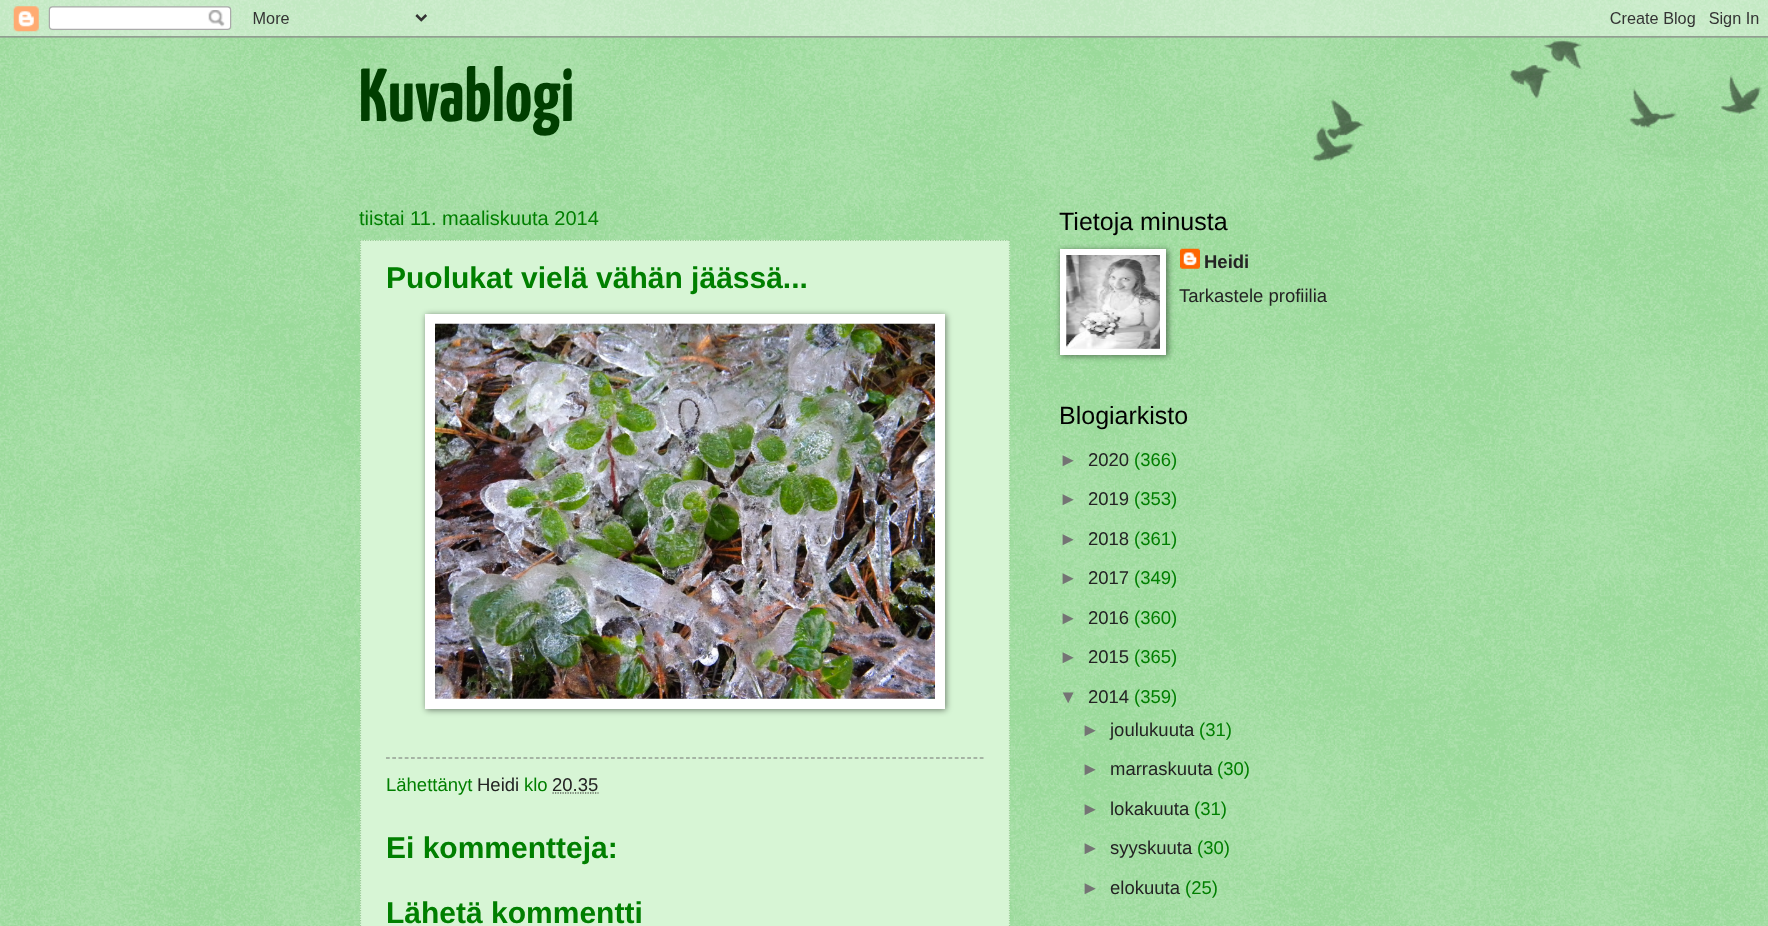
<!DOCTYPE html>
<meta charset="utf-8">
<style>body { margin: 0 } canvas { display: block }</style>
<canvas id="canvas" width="1768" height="926"></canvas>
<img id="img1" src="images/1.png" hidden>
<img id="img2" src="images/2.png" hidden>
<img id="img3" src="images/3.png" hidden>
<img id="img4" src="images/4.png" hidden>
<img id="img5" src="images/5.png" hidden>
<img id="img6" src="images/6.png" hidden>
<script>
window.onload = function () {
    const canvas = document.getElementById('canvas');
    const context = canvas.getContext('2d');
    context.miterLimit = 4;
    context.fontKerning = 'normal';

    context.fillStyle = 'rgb(81, 191, 81)';
    context.fillRect(0, 0, 1768, 926);
    context.drawImage(document.getElementById('img1'), 0, 0, 1768, 926);
    context.drawImage(document.getElementById('img2'), 0, 0, 1768, 38);
    context.fillStyle = 'rgb(215, 245, 213)';
    context.fillRect(360, 240, 650, 686);
    context.beginPath();
    context.moveTo(360, 240.5);
    context.lineTo(1010, 240.5);
    context.strokeStyle = 'rgb(154, 203, 151)';
    context.lineWidth = 1.2;
    context.setLineDash([1.25, 1.25]);
    context.stroke();
    context.beginPath();
    context.moveTo(1009.5, 240);
    context.lineTo(1009.5, 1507.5);
    context.stroke();
    context.beginPath();
    context.moveTo(360.5, 240);
    context.lineTo(360.5, 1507.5);
    context.stroke();
    context.fillStyle = 'rgba(0, 0, 0, 0.5)';
    context.filter = 'blur(3px)';
    context.beginPath();
    context.rect(426, 315, 520, 395);
    context.fill();
    context.filter = 'none';
    context.fillStyle = 'rgb(255, 255, 255)';
    context.fillRect(425, 314, 520, 395);
    context.drawImage(document.getElementById('img3'), 435, 323, 500, 376);
    context.beginPath();
    context.moveTo(386, 758);
    context.lineTo(984, 758);
    context.strokeStyle = 'rgb(116, 116, 116)';
    context.setLineDash([3.75, 2.5]);
    context.stroke();
    context.beginPath();
    context.moveTo(552.5, 793);
    context.lineTo(598.5, 793);
    context.strokeStyle = 'rgb(35, 35, 35)';
    context.setLineDash([1.25, 1.25]);
    context.stroke();
    context.fillStyle = 'rgba(0, 0, 0, 0.5)';
    context.filter = 'blur(3px)';
    context.beginPath();
    context.rect(1061, 250, 107, 106);
    context.fill();
    context.filter = 'none';
    context.fillStyle = 'rgb(255, 255, 255)';
    context.fillRect(1060, 249, 106, 106);
    context.drawImage(document.getElementById('img4'), 1066, 255, 94, 94);
    context.drawImage(document.getElementById('img5'), 1180, 248, 20, 21);
    context.drawImage(document.getElementById('img6'), 1312, 40, 450, 122);
    context.font = '200 75px Yanone Kaffeesatz';
    context.fillStyle = 'rgb(0, 63, 0)';
    context.fillText('Kuvablogi', 359, 121);
    context.font = '20px Liberation Sans';
    context.fillStyle = 'rgb(0, 127, 0)';
    context.fillText('tiistai 11. maaliskuuta 2014', 359, 225);
    context.font = 'bold 30px Liberation Sans';
    context.fillText('Puolukat vielä vähän jäässä...', 386, 288);
    context.font = '18.5px Liberation Sans';
    context.fillText('Lähettänyt', 386, 791);
    context.fillStyle = 'rgb(35, 35, 35)';
    context.fillText('Heidi', 477, 791);
    context.fillStyle = 'rgb(0, 127, 0)';
    context.fillText('klo', 524, 791);
    context.fillStyle = 'rgb(35, 35, 35)';
    context.fillText('20.35', 552, 791);
    context.font = 'bold 30px Liberation Sans';
    context.fillStyle = 'rgb(0, 127, 0)';
    context.fillText('Ei kommentteja:', 386, 858);
    context.fillText('Lähetä kommentti', 386, 923);
    context.font = '25px Liberation Sans';
    context.fillStyle = 'rgb(0, 0, 0)';
    context.fillText('Tietoja minusta', 1059, 230);
    context.font = 'bold 18.5px Liberation Sans';
    context.fillStyle = 'rgb(35, 35, 35)';
    context.fillText('Heidi', 1204, 268);
    context.font = '18.5px Liberation Sans';
    context.fillText('Tarkastele profiilia', 1179, 302);
    context.font = '25px Liberation Sans';
    context.fillStyle = 'rgb(0, 0, 0)';
    context.fillText('Blogiarkisto', 1059, 424);
    context.font = '18.5px Liberation Sans';
    context.fillStyle = 'rgb(116, 116, 116)';
    context.fillText('►', 1059, 466);
    context.fillStyle = 'rgb(35, 35, 35)';
    context.fillText('2020', 1088, 466);
    context.fillStyle = 'rgb(0, 127, 0)';
    context.fillText('(366)', 1134, 466);
    context.fillStyle = 'rgb(116, 116, 116)';
    context.fillText('►', 1059, 505);
    context.fillStyle = 'rgb(35, 35, 35)';
    context.fillText('2019', 1088, 505);
    context.fillStyle = 'rgb(0, 127, 0)';
    context.fillText('(353)', 1134, 505);
    context.fillStyle = 'rgb(116, 116, 116)';
    context.fillText('►', 1059, 545);
    context.fillStyle = 'rgb(35, 35, 35)';
    context.fillText('2018', 1088, 545);
    context.fillStyle = 'rgb(0, 127, 0)';
    context.fillText('(361)', 1134, 545);
    context.fillStyle = 'rgb(116, 116, 116)';
    context.fillText('►', 1059, 584);
    context.fillStyle = 'rgb(35, 35, 35)';
    context.fillText('2017', 1088, 584);
    context.fillStyle = 'rgb(0, 127, 0)';
    context.fillText('(349)', 1134, 584);
    context.fillStyle = 'rgb(116, 116, 116)';
    context.fillText('►', 1059, 624);
    context.fillStyle = 'rgb(35, 35, 35)';
    context.fillText('2016', 1088, 624);
    context.fillStyle = 'rgb(0, 127, 0)';
    context.fillText('(360)', 1134, 624);
    context.fillStyle = 'rgb(116, 116, 116)';
    context.fillText('►', 1059, 663);
    context.fillStyle = 'rgb(35, 35, 35)';
    context.fillText('2015', 1088, 663);
    context.fillStyle = 'rgb(0, 127, 0)';
    context.fillText('(365)', 1134, 663);
    context.fillStyle = 'rgb(116, 116, 116)';
    context.fillText('▼', 1059, 703);
    context.fillStyle = 'rgb(35, 35, 35)';
    context.fillText('2014', 1088, 703);
    context.fillStyle = 'rgb(0, 127, 0)';
    context.fillText('(359)', 1134, 703);
    context.fillStyle = 'rgb(116, 116, 116)';
    context.fillText('►', 1081, 736);
    context.fillStyle = 'rgb(35, 35, 35)';
    context.fillText('joulukuuta', 1110, 736);
    context.fillStyle = 'rgb(0, 127, 0)';
    context.fillText('(31)', 1199, 736);
    context.fillStyle = 'rgb(116, 116, 116)';
    context.fillText('►', 1081, 775);
    context.fillStyle = 'rgb(35, 35, 35)';
    context.fillText('marraskuuta', 1110, 775);
    context.fillStyle = 'rgb(0, 127, 0)';
    context.fillText('(30)', 1217, 775);
    context.fillStyle = 'rgb(116, 116, 116)';
    context.fillText('►', 1081, 815);
    context.fillStyle = 'rgb(35, 35, 35)';
    context.fillText('lokakuuta', 1110, 815);
    context.fillStyle = 'rgb(0, 127, 0)';
    context.fillText('(31)', 1194, 815);
    context.fillStyle = 'rgb(116, 116, 116)';
    context.fillText('►', 1081, 854);
    context.fillStyle = 'rgb(35, 35, 35)';
    context.fillText('syyskuuta', 1110, 854);
    context.fillStyle = 'rgb(0, 127, 0)';
    context.fillText('(30)', 1197, 854);
    context.fillStyle = 'rgb(116, 116, 116)';
    context.fillText('►', 1081, 894);
    context.fillStyle = 'rgb(35, 35, 35)';
    context.fillText('elokuuta', 1110, 894);
    context.fillStyle = 'rgb(0, 127, 0)';
    context.fillText('(25)', 1185, 894);
};
</script>
